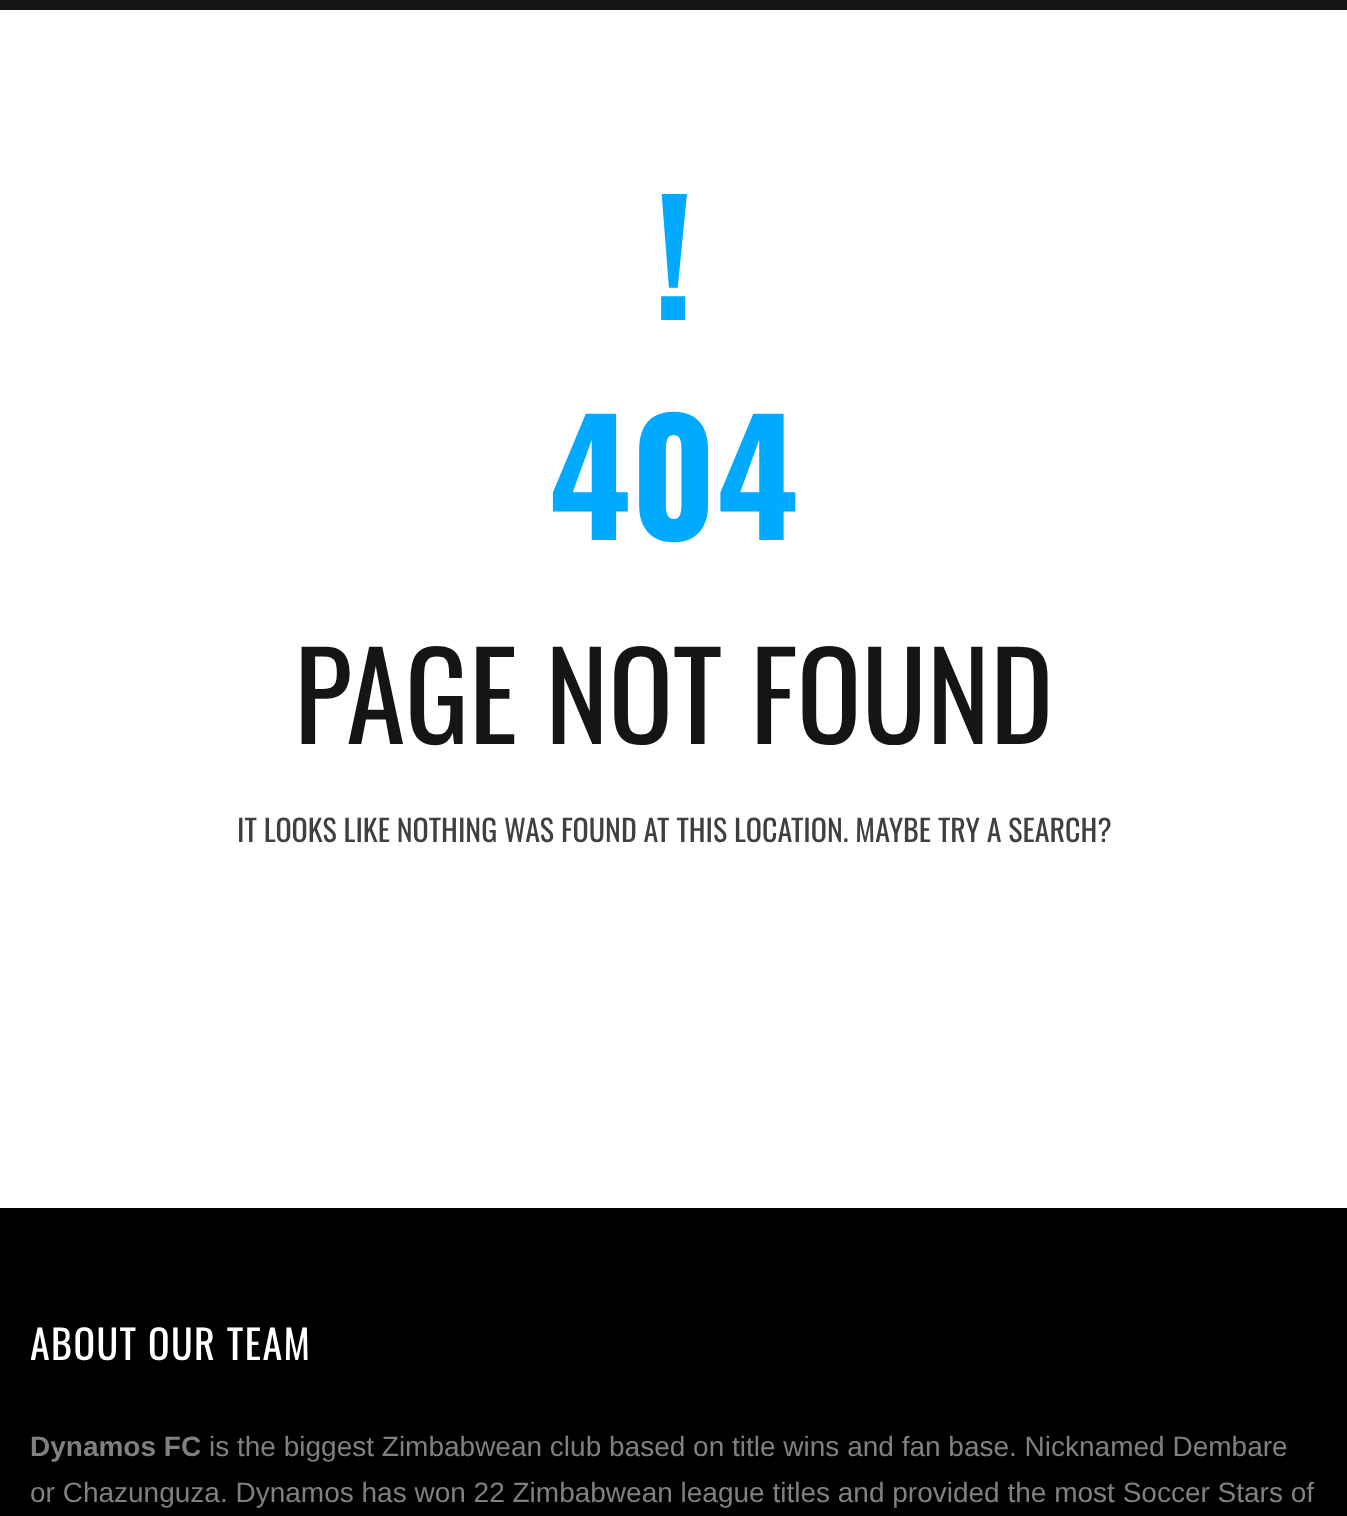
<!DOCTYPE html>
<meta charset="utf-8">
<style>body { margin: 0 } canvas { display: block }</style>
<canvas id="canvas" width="1347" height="1516"></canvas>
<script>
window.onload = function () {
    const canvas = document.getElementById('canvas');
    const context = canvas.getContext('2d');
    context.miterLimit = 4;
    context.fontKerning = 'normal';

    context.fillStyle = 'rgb(255, 255, 255)';
    context.fillRect(0, 0, 1347, 1516);
    context.fillStyle = 'rgb(21, 21, 21)';
    context.fillRect(0, 0, 1347, 10);
    context.fillStyle = 'rgb(0, 0, 0)';
    context.fillRect(0, 1208, 1347, 308);
    context.font = 'bold 156px Oswald';
    context.fillStyle = 'rgb(0, 170, 255)';
    context.fillText('!', 654, 320);
    context.fillText('404', 549, 540);
    context.font = '120px Oswald';
    context.fillStyle = 'rgb(21, 21, 21)';
    context.fillText('PAGE NOT FOUND', 294, 744);
    context.font = '30px Oswald';
    context.fillStyle = 'rgb(64, 64, 64)';
    context.fillText('IT LOOKS LIKE NOTHING WAS FOUND AT THIS LOCATION. MAYBE TRY A SEARCH?', 237, 842);
    context.letterSpacing = '1.4px';
    context.font = '40px Oswald';
    context.fillStyle = 'rgb(255, 255, 255)';
    context.fillText('ABOUT OUR TEAM', 30, 1360);
    context.letterSpacing = '0px';
    context.font = 'bold 28px Liberation Sans';
    context.fillStyle = 'rgb(128, 128, 128)';
    context.fillText('Dynamos FC', 30, 1456);
    context.font = '28px Liberation Sans';
    context.fillText('is the biggest Zimbabwean club based on title wins and fan base. Nicknamed Dembare', 209, 1456);
    context.fillText('or Chazunguza. Dynamos has won 22 Zimbabwean league titles and provided the most Soccer Stars of', 30, 1502);
};
</script>
